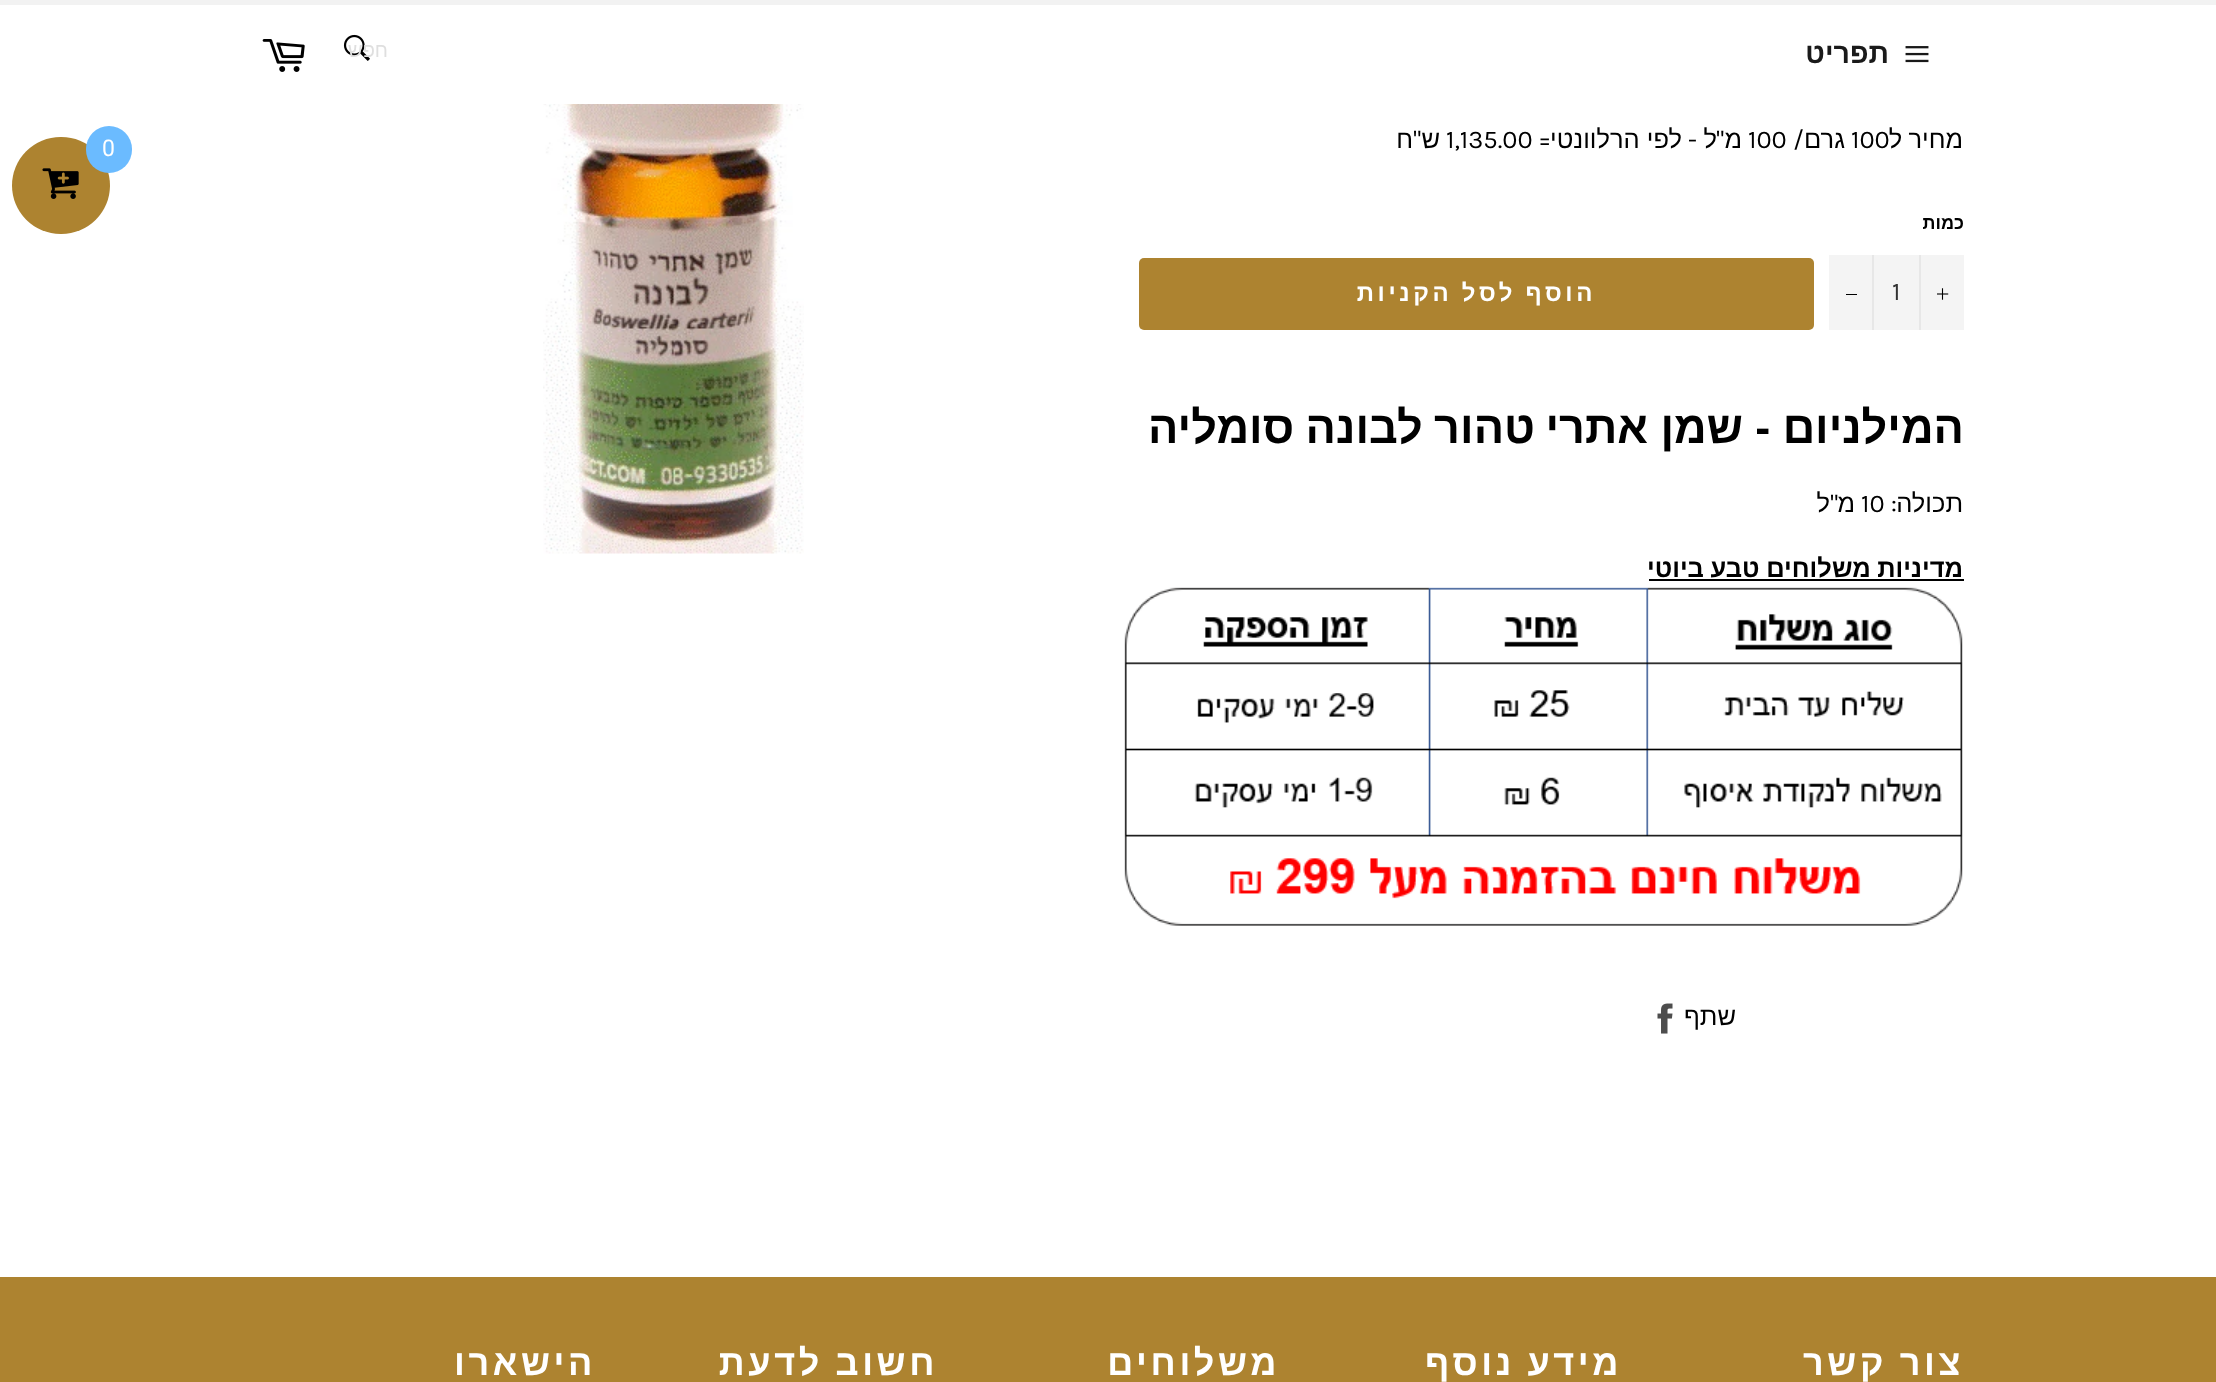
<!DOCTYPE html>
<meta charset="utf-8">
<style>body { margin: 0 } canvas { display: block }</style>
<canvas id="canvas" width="2216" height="1382"></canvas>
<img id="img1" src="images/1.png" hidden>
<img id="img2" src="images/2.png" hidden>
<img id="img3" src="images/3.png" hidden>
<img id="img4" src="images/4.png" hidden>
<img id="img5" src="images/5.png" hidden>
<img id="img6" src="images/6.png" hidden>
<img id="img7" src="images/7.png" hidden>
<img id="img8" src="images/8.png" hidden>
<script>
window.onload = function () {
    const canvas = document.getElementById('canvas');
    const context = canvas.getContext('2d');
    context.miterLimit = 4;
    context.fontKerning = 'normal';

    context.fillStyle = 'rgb(255, 255, 255)';
    context.fillRect(0, 0, 2216, 1382);
    context.fillStyle = 'rgb(242, 242, 242)';
    context.fillRect(0, 0, 2216, 5);
    context.drawImage(document.getElementById('img1'), 1905, 46, 24, 17);
    context.drawImage(document.getElementById('img2'), 343, 34, 27, 27);
    context.drawImage(document.getElementById('img3'), 262, 39, 43, 33);
    context.fillStyle = 'rgb(244, 244, 244)';
    context.fillRect(1829, 255, 135, 75);
    context.fillStyle = 'rgb(231, 231, 231)';
    context.fillRect(1919, 255, 2, 75);
    context.drawImage(document.getElementById('img4'), 1937, 288, 12, 12);
    context.fillRect(1872, 255, 2, 75);
    context.fillStyle = 'rgb(0, 0, 0)';
    context.fillRect(1846, 294, 11, 1);
    context.fillStyle = 'rgb(173, 131, 48)';
    context.beginPath();
    context.roundRect(1139, 258, 675, 72, 5);
    context.fill();
    context.fillStyle = 'rgb(0, 0, 0)';
    context.fillRect(1649, 579, 315, 2);
    context.drawImage(document.getElementById('img5'), 1124, 587, 839, 339);
    context.drawImage(document.getElementById('img6'), 1657, 1003, 16, 31);
    context.drawImage(document.getElementById('img7'), 543, 104, 261, 450);
    context.fillStyle = 'rgb(173, 131, 48)';
    context.fillRect(0, 1277, 2216, 105);
    context.beginPath();
    context.roundRect(12, 137, 98, 97, 48.5);
    context.fill();
    context.fillStyle = 'rgb(107, 187, 255)';
    context.beginPath();
    context.roundRect(86, 126, 46, 47, 23);
    context.fill();
    context.drawImage(document.getElementById('img8'), 42, 168, 37, 31);
    context.direction = 'rtl';
    context.font = 'bold 28.5px Liberation Sans';
    context.fillStyle = 'rgb(26, 26, 26)';
    context.fillText('תפריט', 1889, 63);
    context.font = '20px Liberation Sans';
    context.fillStyle = 'rgb(223, 223, 223)';
    context.fillText('חפש', 388, 57);
    context.wordSpacing = '-1px';
    context.font = '25.5px Liberation Sans';
    context.fillStyle = 'rgb(0, 0, 0)';
    context.fillText('מחיר ל', 1963, 148);
    context.wordSpacing = '0px';
    context.direction = 'ltr';
    context.font = '25.5px Karla';
    context.fillText('100', 1851, 148);
    context.direction = 'rtl';
    context.font = '25.5px Liberation Sans';
    context.fillText('גרם', 1845, 148);
    context.font = '25.5px Karla';
    context.fillText('/', 1804, 148);
    context.direction = 'ltr';
    context.fillText('100', 1748, 148);
    context.direction = 'rtl';
    context.font = '25.5px Liberation Sans';
    context.fillText('מ', 1742, 148);
    context.font = '25.5px Karla';
    context.fillText('"', 1724, 148);
    context.font = '25.5px Liberation Sans';
    context.fillText('ל', 1717, 148);
    context.font = '25.5px Karla';
    context.fillText('-', 1697, 148);
    context.font = '25.5px Liberation Sans';
    context.fillText('לפי הרלוונטי', 1682, 148);
    context.font = '25.5px Karla';
    context.fillText('=', 1551, 148);
    context.direction = 'ltr';
    context.fillText('1,135.00', 1446, 148);
    context.direction = 'rtl';
    context.font = '25.5px Liberation Sans';
    context.fillText('ש', 1440, 148);
    context.font = '25.5px Karla';
    context.fillText('"', 1421, 148);
    context.font = '25.5px Liberation Sans';
    context.fillText('ח', 1413, 148);
    context.font = 'bold 18px Liberation Sans';
    context.fillText('כמות', 1964, 229);
    context.direction = 'ltr';
    context.font = '25.5px Karla';
    context.fillStyle = 'rgb(51, 51, 51)';
    context.fillText('1', 1892, 300);
    context.letterSpacing = '3.6px';
    context.wordSpacing = '-1px';
    context.direction = 'rtl';
    context.font = 'bold 24px Liberation Sans';
    context.fillStyle = 'rgb(255, 255, 255)';
    context.fillText('הוסף לסל הקניות', 1596, 301);
    context.letterSpacing = '0px';
    context.wordSpacing = '0px';
    context.font = 'bold 45px Liberation Sans';
    context.fillStyle = 'rgb(0, 0, 0)';
    context.fillText('המילניום -', 1964, 443);
    context.fillText('שמן אתרי', 1743, 443);
    context.wordSpacing = '-1px';
    context.fillText('טהור לבונה סומליה', 1535, 443);
    context.wordSpacing = '0px';
    context.font = '25.5px Liberation Sans';
    context.fillText('תכולה', 1963, 512);
    context.font = '25.5px Karla';
    context.fillText(':', 1897, 512);
    context.direction = 'ltr';
    context.fillText('10', 1861, 512);
    context.direction = 'rtl';
    context.font = '25.5px Liberation Sans';
    context.fillText('מ', 1855, 512);
    context.font = '25.5px Karla';
    context.fillText('"', 1838, 512);
    context.font = '25.5px Liberation Sans';
    context.fillText('ל', 1830, 512);
    context.wordSpacing = '-0.5px';
    context.font = 'bold 25.5px Liberation Sans';
    context.fillText('מדיניות משלוחים טבע ביוטי', 1963, 577);
    context.wordSpacing = '0px';
    context.font = '25.5px Liberation Sans';
    context.fillText('שתף', 1736, 1025);
    context.letterSpacing = '3.6px';
    context.wordSpacing = '-1px';
    context.font = 'bold 36px Liberation Sans';
    context.fillStyle = 'rgb(255, 255, 255)';
    context.fillText('צור קשר', 1964, 1375);
    context.fillText('מידע נוסף', 1622, 1375);
    context.wordSpacing = '0px';
    context.fillText('משלוחים', 1280, 1375);
    context.wordSpacing = '-1px';
    context.fillText('חשוב לדעת', 938, 1375);
    context.wordSpacing = '0px';
    context.fillText('הישארו', 596, 1375);
    context.letterSpacing = '0px';
    context.direction = 'ltr';
    context.font = '23px Roboto';
    context.fillText('0', 102, 156);
};
</script>
